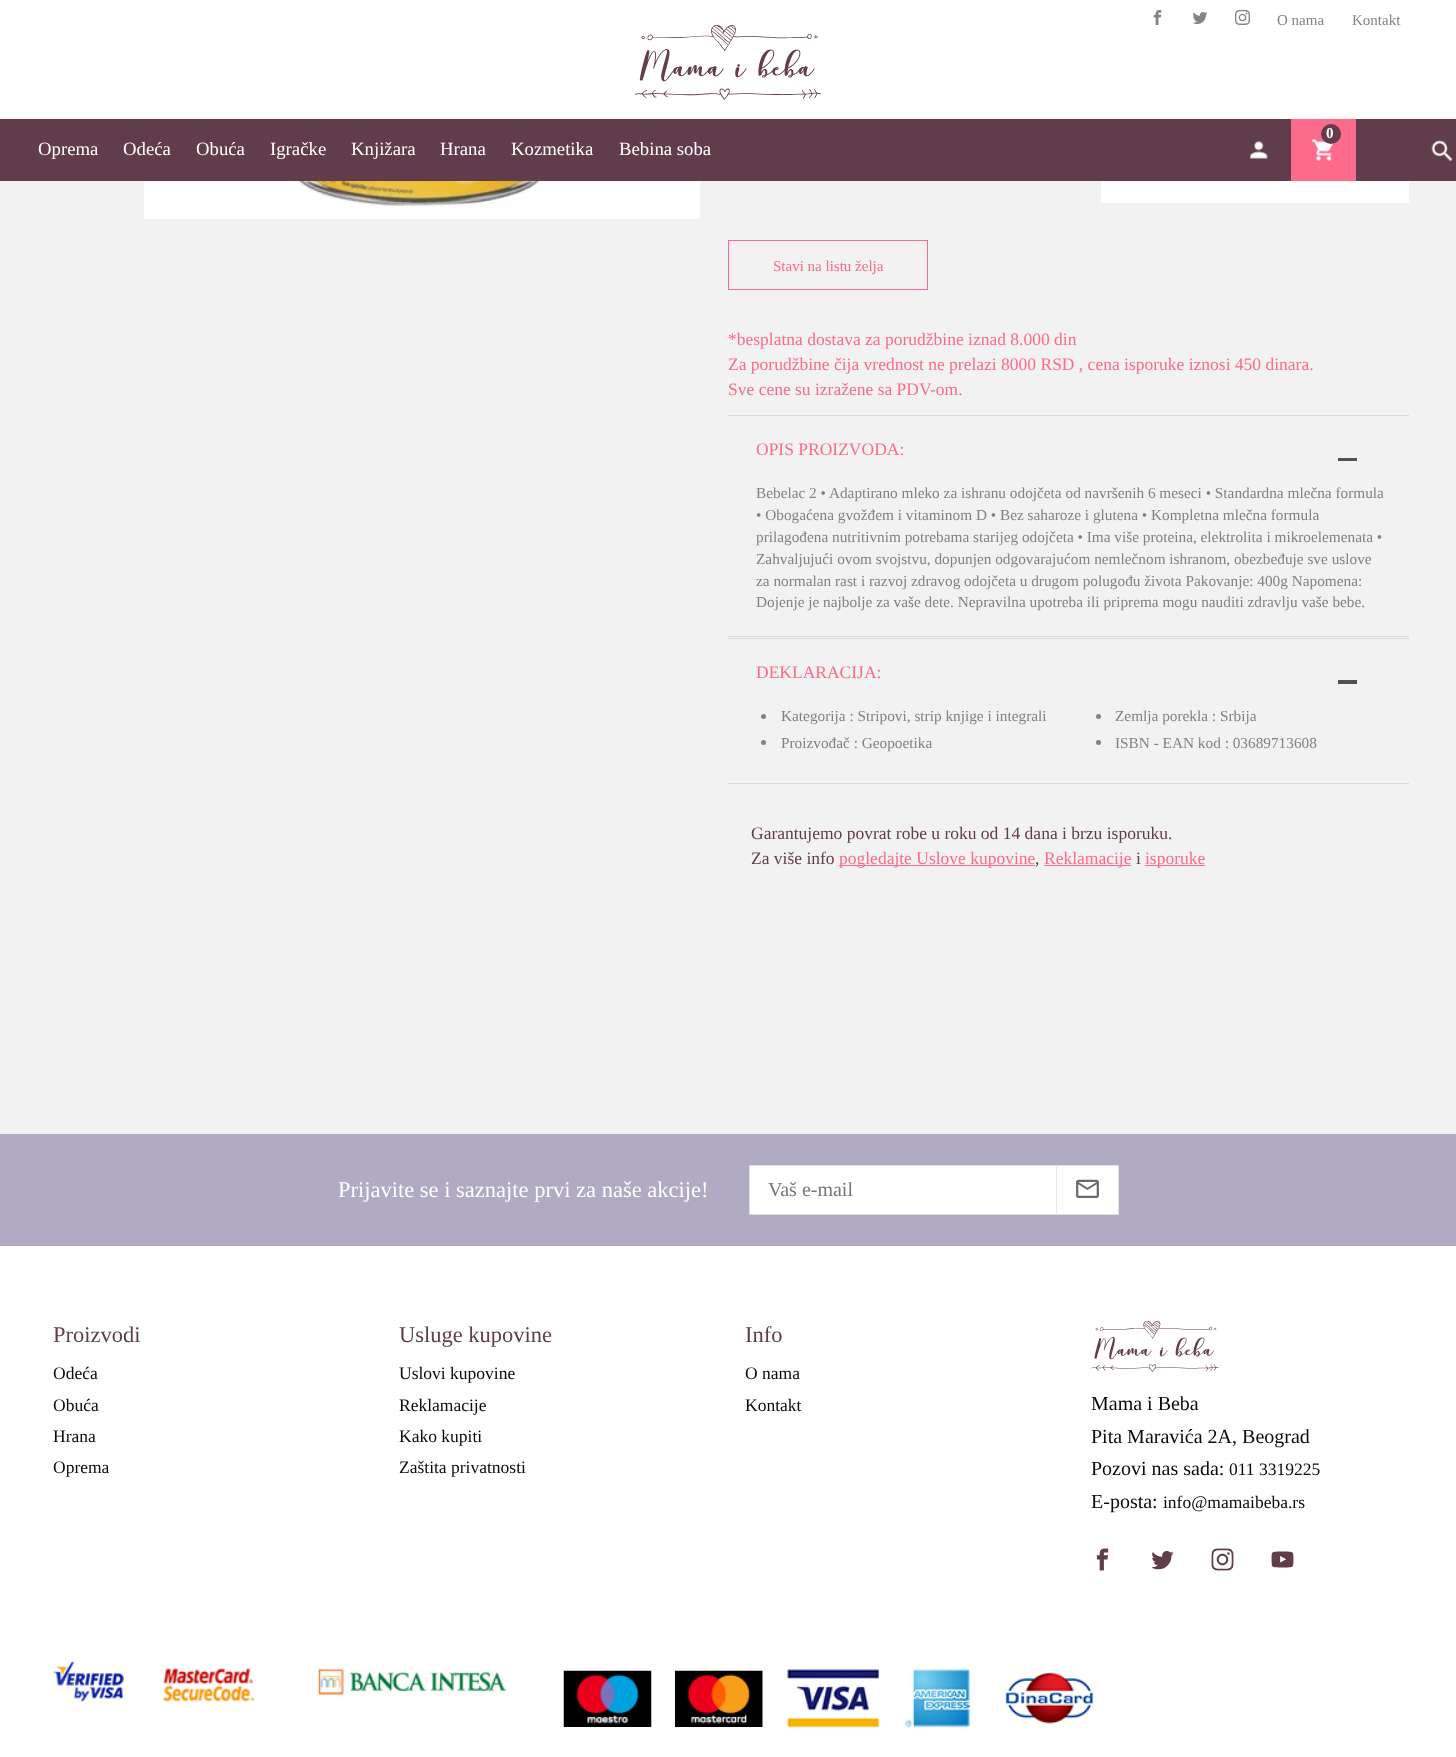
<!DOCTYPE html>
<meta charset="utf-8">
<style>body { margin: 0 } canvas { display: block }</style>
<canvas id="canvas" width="1456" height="1757"></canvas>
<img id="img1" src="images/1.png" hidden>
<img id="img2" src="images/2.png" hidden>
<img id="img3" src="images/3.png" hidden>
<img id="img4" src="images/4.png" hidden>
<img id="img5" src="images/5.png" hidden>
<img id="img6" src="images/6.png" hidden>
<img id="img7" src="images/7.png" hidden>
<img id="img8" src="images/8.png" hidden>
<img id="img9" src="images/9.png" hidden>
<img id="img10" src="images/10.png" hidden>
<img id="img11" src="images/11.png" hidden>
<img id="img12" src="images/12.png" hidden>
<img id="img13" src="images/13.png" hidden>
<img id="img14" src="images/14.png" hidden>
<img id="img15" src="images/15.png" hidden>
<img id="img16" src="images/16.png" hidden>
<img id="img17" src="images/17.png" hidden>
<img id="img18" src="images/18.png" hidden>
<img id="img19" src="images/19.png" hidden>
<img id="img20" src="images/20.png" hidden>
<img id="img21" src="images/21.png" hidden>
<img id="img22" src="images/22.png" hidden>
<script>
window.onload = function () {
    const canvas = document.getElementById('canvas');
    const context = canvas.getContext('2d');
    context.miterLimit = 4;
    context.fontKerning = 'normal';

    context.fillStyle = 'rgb(255, 255, 255)';
    context.fillRect(0, 0, 1456, 1757);
    context.drawImage(document.getElementById('img1'), 1153, 10, 9, 15);
    context.drawImage(document.getElementById('img2'), 1193, 12, 14, 12);
    context.drawImage(document.getElementById('img3'), 1235, 10, 15, 15);
    context.drawImage(document.getElementById('img4'), 635, 25, 186, 75);
    context.fillStyle = 'rgb(97, 60, 75)';
    context.fillRect(0, 119, 1456, 62);
    context.fillStyle = 'rgb(252, 107, 139)';
    context.fillRect(1291, 119, 65, 62);
    context.drawImage(document.getElementById('img5'), 1312, 139, 22, 22);
    context.fillStyle = 'rgb(97, 60, 75)';
    context.beginPath();
    context.arc(1331, 134, 10, 0, 2 * Math.PI);
    context.fill();
    context.drawImage(document.getElementById('img6'), 1250, 141, 18, 18);
    context.drawImage(document.getElementById('img7'), 1431, 140, 22, 22);
    context.fillStyle = 'rgb(242, 242, 242)';
    context.fillRect(0, 181, 1456, 953);
    context.fillStyle = 'rgb(255, 255, 255)';
    context.fillRect(144, 181, 556, 38);
    context.drawImage(document.getElementById('img8'), 289, 181, 258, 27);
    context.fillRect(1101, 181, 308, 22);
    context.strokeStyle = 'rgb(252, 107, 139)';
    context.strokeRect(728.5, 240.5, 199, 49);
    context.fillStyle = 'rgb(219, 216, 216)';
    context.fillRect(728, 415, 681, 1);
    context.fillRect(728, 636, 681, 1);
    context.fillStyle = 'rgb(81, 81, 81)';
    context.fillRect(1338, 458, 19, 3);
    context.fillStyle = 'rgb(219, 216, 216)';
    context.fillRect(728, 638, 681, 1);
    context.fillRect(728, 783, 681, 1);
    context.fillStyle = 'rgb(81, 81, 81)';
    context.fillRect(1338, 680, 19, 4);
    context.fillStyle = 'rgb(130, 130, 130)';
    context.beginPath();
    context.arc(763.5, 716.5, 2.5, 0, 2 * Math.PI);
    context.fill();
    context.beginPath();
    context.arc(1098.5, 716.5, 2.5, 0, 2 * Math.PI);
    context.fill();
    context.beginPath();
    context.arc(763.5, 742.5, 2.5, 0, 2 * Math.PI);
    context.fill();
    context.beginPath();
    context.arc(1098.5, 742.5, 2.5, 0, 2 * Math.PI);
    context.fill();
    context.fillStyle = 'rgb(252, 107, 139)';
    context.fillRect(839, 865, 196, 1);
    context.fillRect(1044, 865, 87, 1);
    context.fillRect(1145, 865, 60, 1);
    context.fillStyle = 'rgb(176, 170, 194)';
    context.fillRect(0, 1134, 1456, 112);
    context.fillStyle = 'rgb(255, 255, 255)';
    context.beginPath();
    context.rect(749.5, 1165.5, 369, 49);
    context.fill();
    context.strokeStyle = 'rgb(224, 224, 224)';
    context.stroke();
    context.fillStyle = 'rgb(233, 233, 233)';
    context.fillRect(1056, 1165, 1, 50);
    context.drawImage(document.getElementById('img9'), 1076, 1179, 23, 19);
    context.drawImage(document.getElementById('img10'), 1091, 1321, 128, 51);
    context.drawImage(document.getElementById('img11'), 1096, 1548, 13, 23);
    context.drawImage(document.getElementById('img12'), 1151, 1551, 23, 19);
    context.drawImage(document.getElementById('img13'), 1211, 1548, 23, 23);
    context.drawImage(document.getElementById('img14'), 1271, 1551, 23, 17);
    context.drawImage(document.getElementById('img15'), 53, 1661, 71, 42);
    context.drawImage(document.getElementById('img16'), 162, 1668, 93, 35);
    context.drawImage(document.getElementById('img17'), 318, 1669, 189, 26);
    context.drawImage(document.getElementById('img18'), 563, 1670, 89, 57);
    context.drawImage(document.getElementById('img19'), 675, 1670, 88, 57);
    context.drawImage(document.getElementById('img20'), 787, 1669, 92, 59);
    context.drawImage(document.getElementById('img21'), 904, 1668, 70, 60);
    context.drawImage(document.getElementById('img22'), 1005, 1672, 89, 52);
    context.font = '15px Liberation Serif';
    context.fillStyle = 'rgb(130, 130, 130)';
    context.fillText('O nama', 1277, 25);
    context.fillText('Kontakt', 1352, 25);
    context.font = 'bold 15px Liberation Serif';
    context.fillStyle = 'rgb(255, 255, 255)';
    context.fillText('0', 1326, 138);
    context.font = '18.75px Liberation Serif';
    context.fillText('Oprema', 38, 155);
    context.fillText('Odeća', 123, 155);
    context.fillText('Obuća', 196, 155);
    context.fillText('Igračke', 270, 155);
    context.fillText('Knjižara', 351, 155);
    context.fillText('Hrana', 440, 155);
    context.fillText('Kozmetika', 511, 155);
    context.fillText('Bebina soba', 619, 155);
    context.font = '15px Liberation Serif';
    context.fillStyle = 'rgb(252, 107, 139)';
    context.fillText('Stavi na listu želja', 773, 271);
    context.font = '17.5px Liberation Serif';
    context.fillText('*besplatna dostava za porudžbine iznad 8.000 din', 728, 345);
    context.fillText('Za porudžbine čija vrednost ne prelazi 8000 RSD , cena isporuke iznosi 450 dinara.', 728, 370);
    context.fillText('Sve cene su izražene sa PDV-om.', 728, 395);
    context.fillText('OPIS PROIZVODA:', 756, 455);
    context.font = '15.3px Liberation Serif';
    context.fillStyle = 'rgb(130, 130, 130)';
    context.fillText('Bebelac 2 • Adaptirano mleko za ishranu odojčeta od navršenih 6 meseci • Standardna mlečna formula', 756, 498);
    context.fillText('• Obogaćena gvožđem i vitaminom D • Bez saharoze i glutena • Kompletna mlečna formula', 756, 520);
    context.fillText('prilagođena nutritivnim potrebama starijeg odojčeta • Ima više proteina, elektrolita i mikroelemenata •', 756, 542);
    context.fillText('Zahvaljujući ovom svojstvu, dopunjen odgovarajućom nemlečnom ishranom, obezbeđuje sve uslove', 756, 564);
    context.fillText('za normalan rast i razvoj zdravog odojčeta u drugom polugođu života Pakovanje: 400g Napomena:', 756, 586);
    context.fillText('Dojenje je najbolje za vaše dete. Nepravilna upotreba ili priprema mogu nauditi zdravlju vaše bebe.', 756, 607);
    context.font = '17.5px Liberation Serif';
    context.fillStyle = 'rgb(252, 107, 139)';
    context.fillText('DEKLARACIJA:', 756, 678);
    context.font = '15.3px Liberation Serif';
    context.fillStyle = 'rgb(130, 130, 130)';
    context.fillText('Kategorija : Stripovi, strip knjige i integrali', 781, 721);
    context.fillText('Zemlja porekla : Srbija', 1115, 721);
    context.fillText('Proizvođač : Geopoetika', 781, 748);
    context.fillText('ISBN - EAN kod : 03689713608', 1115, 748);
    context.font = '17.5px Liberation Serif';
    context.fillStyle = 'rgb(97, 60, 75)';
    context.fillText('Garantujemo povrat robe u roku od 14 dana i brzu isporuku.', 751, 839);
    context.fillText('Za više info', 751, 864);
    context.fillStyle = 'rgb(252, 107, 139)';
    context.fillText('pogledajte Uslove kupovine', 839, 864);
    context.fillText('Reklamacije', 1044, 864);
    context.fillStyle = 'rgb(97, 60, 75)';
    context.fillText('i', 1136, 864);
    context.fillStyle = 'rgb(252, 107, 139)';
    context.fillText('isporuke', 1145, 864);
    context.fillStyle = 'rgb(97, 60, 75)';
    context.fillText(',', 1035, 864);
    context.font = '22.5px Liberation Serif';
    context.fillStyle = 'rgb(255, 255, 255)';
    context.fillText('Prijavite se i saznajte prvi za naše akcije!', 338, 1197);
    context.font = '20px Liberation Serif';
    context.fillStyle = 'rgb(117, 117, 117)';
    context.fillText('Vaš e-mail', 768, 1196);
    context.font = '22.5px Liberation Serif';
    context.fillStyle = 'rgb(97, 60, 75)';
    context.fillText('Proizvodi', 53, 1342);
    context.font = '17.5px Liberation Serif';
    context.fillStyle = 'rgb(10, 10, 10)';
    context.fillText('Odeća', 53, 1379);
    context.fillText('Obuća', 53, 1411);
    context.fillText('Hrana', 53, 1442);
    context.fillText('Oprema', 53, 1473);
    context.font = '22.5px Liberation Serif';
    context.fillStyle = 'rgb(97, 60, 75)';
    context.fillText('Usluge kupovine', 399, 1342);
    context.font = '17.5px Liberation Serif';
    context.fillStyle = 'rgb(10, 10, 10)';
    context.fillText('Uslovi kupovine', 399, 1379);
    context.fillText('Reklamacije', 399, 1411);
    context.fillText('Kako kupiti', 399, 1442);
    context.fillText('Zaštita privatnosti', 399, 1473);
    context.font = '22.5px Liberation Serif';
    context.fillStyle = 'rgb(97, 60, 75)';
    context.fillText('Info', 745, 1342);
    context.font = '17.5px Liberation Serif';
    context.fillStyle = 'rgb(10, 10, 10)';
    context.fillText('O nama', 745, 1379);
    context.fillText('Kontakt', 745, 1411);
    context.font = '20px Liberation Serif';
    context.fillText('Mama i Beba', 1091, 1410);
    context.fillText('Pita Maravića 2A, Beograd', 1091, 1443);
    context.fillText('Pozovi nas sada:', 1091, 1475);
    context.font = '17.5px Liberation Serif';
    context.fillText('011 3319225', 1229, 1475);
    context.font = '20px Liberation Serif';
    context.fillText('E-posta:', 1091, 1508);
    context.font = '17.5px Liberation Serif';
    context.fillText('info@mamaibeba.rs', 1163, 1508);
};
</script>
